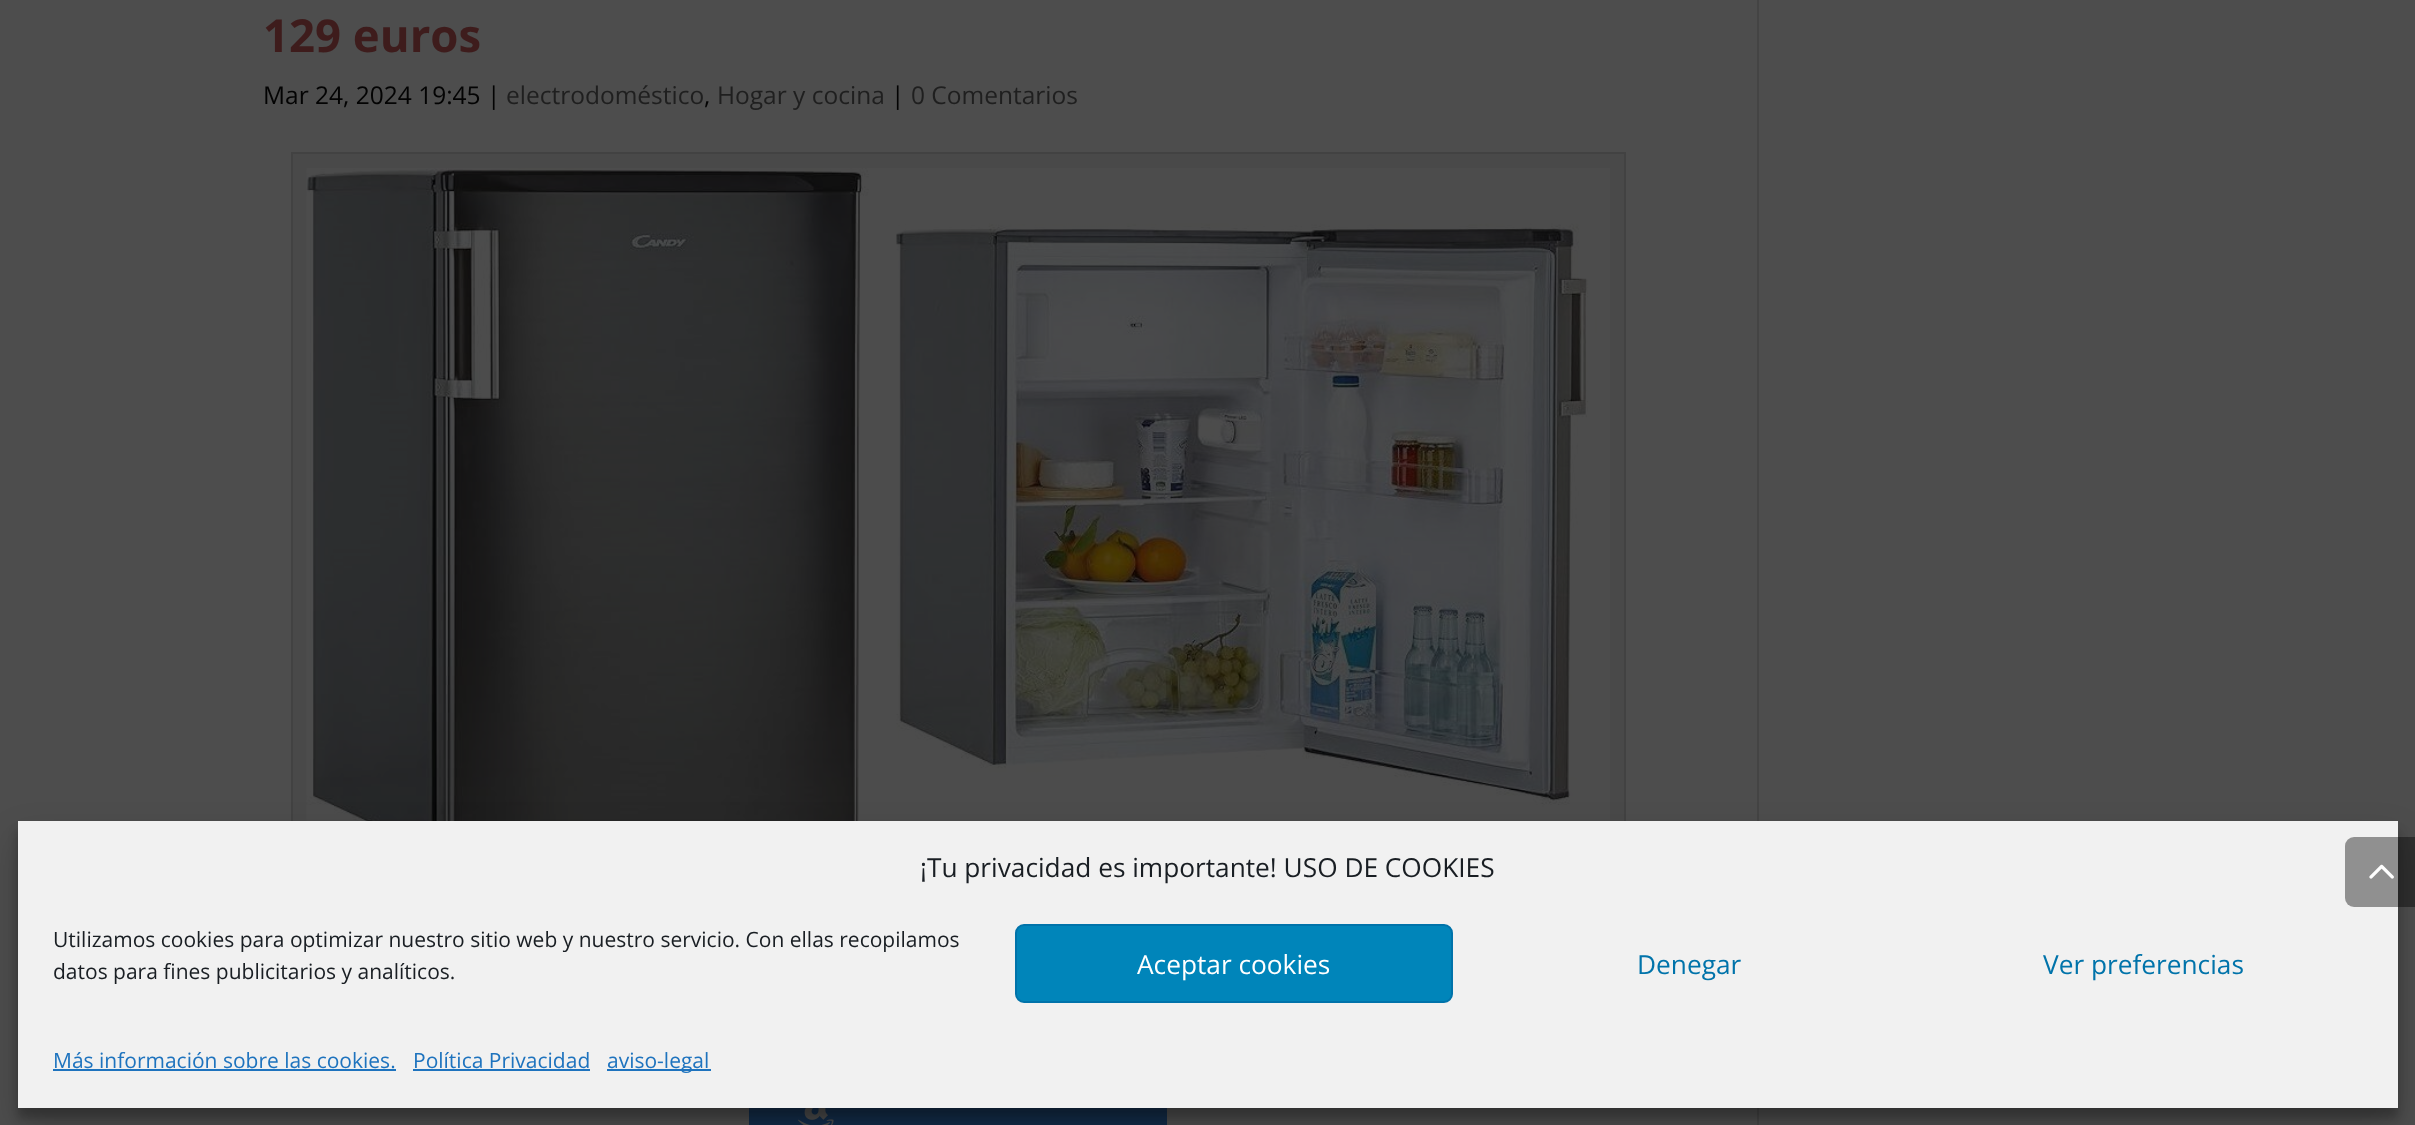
<!DOCTYPE html>
<meta charset="utf-8">
<style>body { margin: 0 } canvas { display: block }</style>
<canvas id="canvas" width="2415" height="1125"></canvas>
<img id="img1" src="images/1.png" hidden>
<img id="img2" src="images/2.png" hidden>
<img id="img3" src="images/3.png" hidden>
<img id="img4" src="images/4.png" hidden>
<script>
window.onload = function () {
    const canvas = document.getElementById('canvas');
    const context = canvas.getContext('2d');
    context.miterLimit = 4;
    context.fontKerning = 'normal';

    context.fillStyle = 'rgb(77, 77, 77)';
    context.fillRect(0, 0, 2415, 1125);
    context.fillStyle = 'rgb(73, 73, 73)';
    context.fillRect(293, 154, 1331, 667);
    context.strokeStyle = 'rgb(66, 66, 66)';
    context.lineWidth = 2;
    context.strokeRect(292, 153, 1333, 772);
    context.drawImage(document.getElementById('img1'), 306, 168, 1304, 653);
    context.fillStyle = 'rgb(14, 41, 72)';
    context.fillRect(749, 1108, 418, 17);
    context.drawImage(document.getElementById('img2'), 749, 1108, 418, 17);
    context.drawImage(document.getElementById('img3'), 798, 1108, 36, 17);
    context.fillStyle = 'rgb(68, 68, 68)';
    context.fillRect(1757, 0, 2, 1125);
    context.fillStyle = 'rgba(0, 0, 0, 0.23)';
    context.filter = 'blur(5px)';
    context.beginPath();
    context.rect(18, 831, 2380, 287);
    context.fill();
    context.filter = 'none';
    context.fillStyle = 'rgba(0, 0, 0, 0.19)';
    context.filter = 'blur(17.5px)';
    context.beginPath();
    context.rect(18, 838, 2380, 287);
    context.fill();
    context.filter = 'none';
    context.fillStyle = 'rgb(241, 241, 241)';
    context.fillRect(18, 821, 2380, 287);
    context.fillStyle = 'rgba(0, 0, 0, 0.4)';
    context.beginPath();
    context.roundRect(2345, 837, 70, 70, [9, 0, 0, 9]);
    context.fill();
    context.drawImage(document.getElementById('img4'), 2369, 864, 25, 15);
    context.fillStyle = 'rgb(0, 133, 186)';
    context.beginPath();
    context.roundRect(1016, 925, 436, 77, 8);
    context.fill();
    context.strokeStyle = 'rgb(0, 115, 170)';
    context.stroke();
    context.fillStyle = 'rgb(30, 115, 190)';
    context.fillRect(53, 1069, 343, 2);
    context.fillRect(413, 1069, 177, 2);
    context.fillRect(607, 1069, 104, 2);
    context.font = 'bold 45.5px Open Sans';
    context.fillStyle = 'rgb(62, 28, 28)';
    context.fillText('129 euros', 263, 52);
    context.font = '24.5px Open Sans';
    context.fillStyle = 'rgb(3, 3, 3)';
    context.fillText('Mar 24, 2024 19:45 |', 263, 104);
    context.fillStyle = 'rgb(31, 31, 31)';
    context.fillText('electrodoméstico', 506, 104);
    context.fillStyle = 'rgb(3, 3, 3)';
    context.fillText(',', 704, 104);
    context.fillStyle = 'rgb(31, 31, 31)';
    context.fillText('Hogar y cocina', 717, 104);
    context.fillStyle = 'rgb(3, 3, 3)';
    context.fillText('|', 891, 104);
    context.fillStyle = 'rgb(31, 31, 31)';
    context.fillText('0 Comentarios', 911, 104);
    context.font = '26.25px Open Sans';
    context.fillStyle = 'rgb(25, 30, 35)';
    context.fillText('¡Tu privacidad es importante! USO DE COOKIES', 920, 877);
    context.font = '21px Open Sans';
    context.fillText('Utilizamos cookies para optimizar nuestro sitio web y nuestro servicio. Con ellas recopilamos', 53, 947);
    context.fillText('datos para fines publicitarios y analíticos.', 53, 979);
    context.font = '26.25px Open Sans';
    context.fillStyle = 'rgb(255, 255, 255)';
    context.fillText('Aceptar cookies', 1137, 974);
    context.fillStyle = 'rgb(0, 115, 170)';
    context.fillText('Denegar', 1637, 974);
    context.fillText('Ver preferencias', 2043, 974);
    context.font = '21px Open Sans';
    context.fillStyle = 'rgb(30, 115, 190)';
    context.fillText('Más información sobre las cookies.', 53, 1068);
    context.fillText('Política Privacidad', 413, 1068);
    context.fillText('aviso-legal', 607, 1068);
};
</script>
